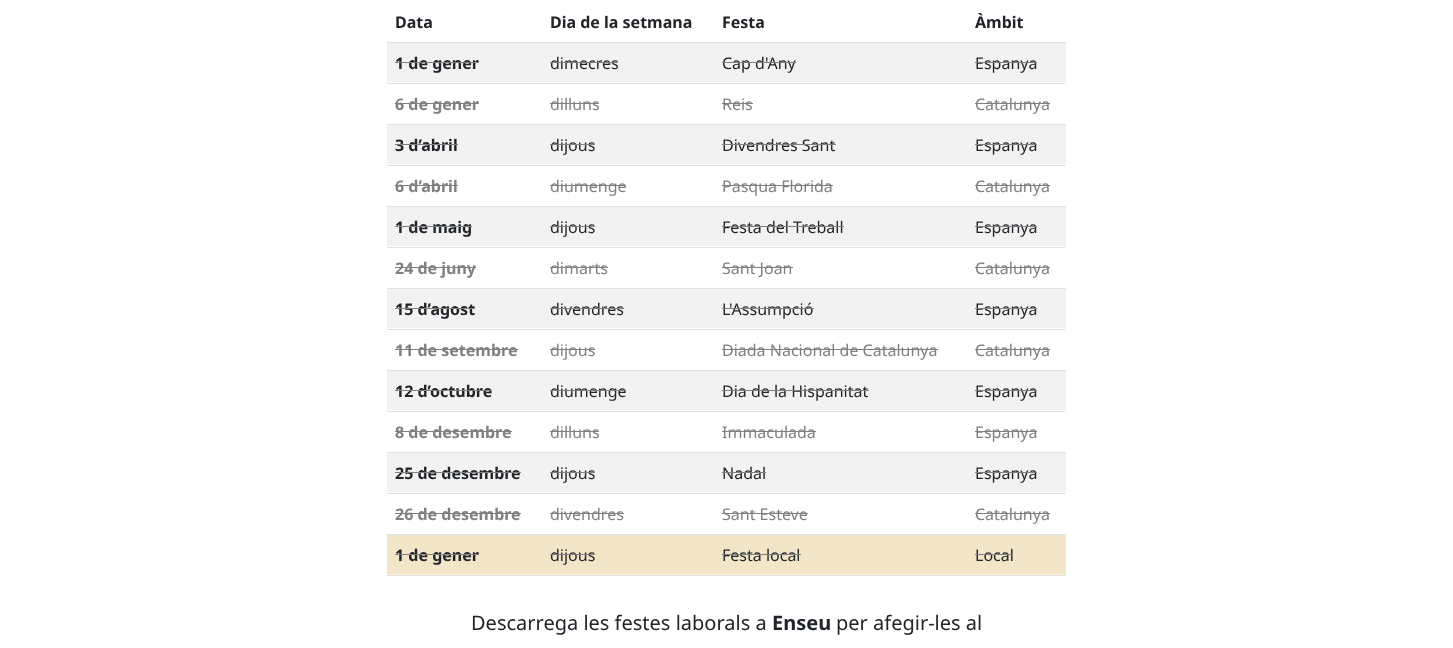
<!DOCTYPE html>
<meta charset="utf-8">
<style>body { margin: 0 } canvas { display: block }</style>
<canvas id="canvas" width="1453" height="648"></canvas>
<script>
window.onload = function () {
    const canvas = document.getElementById('canvas');
    const context = canvas.getContext('2d');
    context.miterLimit = 4;
    context.fontKerning = 'normal';

    context.fillStyle = 'rgb(255, 255, 255)';
    context.fillRect(0, 0, 1453, 648);
    context.fillStyle = 'rgb(222, 226, 230)';
    context.fillRect(387, 42, 679, 1);
    context.fillStyle = 'rgb(242, 242, 242)';
    context.fillRect(387, 43, 679, 39);
    context.fillStyle = 'rgb(222, 226, 230)';
    context.fillRect(387, 83, 679, 1);
    context.fillStyle = 'rgb(128, 128, 128)';
    context.fillRect(395, 103, 84, 1);
    context.fillRect(550, 103, 49, 1);
    context.fillRect(722, 103, 31, 1);
    context.fillStyle = 'rgb(222, 226, 230)';
    context.fillRect(387, 124, 679, 1);
    context.fillStyle = 'rgb(128, 128, 128)';
    context.fillRect(975, 103, 75, 1);
    context.fillStyle = 'rgb(242, 242, 242)';
    context.fillRect(387, 125, 679, 39);
    context.fillStyle = 'rgb(222, 226, 230)';
    context.fillRect(387, 165, 679, 1);
    context.fillStyle = 'rgb(128, 128, 128)';
    context.fillRect(395, 185, 63, 1);
    context.fillRect(550, 185, 76, 1);
    context.fillRect(722, 185, 111, 1);
    context.fillStyle = 'rgb(222, 226, 230)';
    context.fillRect(387, 206, 679, 1);
    context.fillStyle = 'rgb(128, 128, 128)';
    context.fillRect(975, 185, 75, 1);
    context.fillStyle = 'rgb(242, 242, 242)';
    context.fillRect(387, 207, 679, 39);
    context.fillStyle = 'rgb(222, 226, 230)';
    context.fillRect(387, 247, 679, 1);
    context.fillStyle = 'rgb(128, 128, 128)';
    context.fillRect(395, 267, 81, 1);
    context.fillRect(550, 267, 58, 1);
    context.fillRect(722, 267, 71, 1);
    context.fillStyle = 'rgb(222, 226, 230)';
    context.fillRect(387, 288, 679, 1);
    context.fillStyle = 'rgb(128, 128, 128)';
    context.fillRect(975, 267, 75, 1);
    context.fillStyle = 'rgb(242, 242, 242)';
    context.fillRect(387, 289, 679, 39);
    context.fillStyle = 'rgb(222, 226, 230)';
    context.fillRect(387, 329, 679, 1);
    context.fillStyle = 'rgb(128, 128, 128)';
    context.fillRect(395, 349, 123, 1);
    context.fillRect(550, 349, 45, 1);
    context.fillRect(722, 349, 216, 1);
    context.fillStyle = 'rgb(222, 226, 230)';
    context.fillRect(387, 370, 679, 1);
    context.fillStyle = 'rgb(128, 128, 128)';
    context.fillRect(975, 349, 75, 1);
    context.fillStyle = 'rgb(242, 242, 242)';
    context.fillRect(387, 371, 679, 39);
    context.fillStyle = 'rgb(222, 226, 230)';
    context.fillRect(387, 411, 679, 1);
    context.fillStyle = 'rgb(128, 128, 128)';
    context.fillRect(395, 431, 117, 1);
    context.fillRect(550, 431, 49, 1);
    context.fillRect(722, 431, 94, 1);
    context.fillStyle = 'rgb(222, 226, 230)';
    context.fillRect(387, 452, 679, 1);
    context.fillStyle = 'rgb(128, 128, 128)';
    context.fillRect(975, 431, 62, 1);
    context.fillStyle = 'rgb(242, 242, 242)';
    context.fillRect(387, 453, 679, 39);
    context.fillStyle = 'rgb(222, 226, 230)';
    context.fillRect(387, 493, 679, 1);
    context.fillStyle = 'rgb(128, 128, 128)';
    context.fillRect(395, 513, 126, 1);
    context.fillRect(550, 513, 74, 1);
    context.fillRect(722, 513, 86, 1);
    context.fillStyle = 'rgb(222, 226, 230)';
    context.fillRect(387, 534, 679, 1);
    context.fillStyle = 'rgb(128, 128, 128)';
    context.fillRect(975, 513, 75, 1);
    context.fillStyle = 'rgb(255, 241, 211)';
    context.fillRect(387, 574, 679, 1);
    context.fillStyle = 'rgb(242, 229, 200)';
    context.fillRect(387, 535, 679, 39);
    context.fillStyle = 'rgb(222, 226, 230)';
    context.fillRect(387, 575, 679, 1);
    context.font = 'bold 16px Noto Sans';
    context.fillStyle = 'rgb(33, 37, 41)';
    context.fillText('Data', 395, 28);
    context.fillText('Dia de la setmana', 550, 28);
    context.fillText('Festa', 722, 28);
    context.fillText('Àmbit', 975, 28);
    context.fillText('1 de gener', 395, 69);
    context.fillStyle = 'rgb(128, 128, 128)';
    context.fillRect(395, 62, 84, 1);
    context.font = '16px Noto Sans';
    context.fillStyle = 'rgb(33, 37, 41)';
    context.fillText('dimecres', 550, 69);
    context.fillStyle = 'rgb(128, 128, 128)';
    context.fillRect(550, 62, 68, 1);
    context.fillStyle = 'rgb(33, 37, 41)';
    context.fillText('Cap d\'Any', 722, 69);
    context.fillStyle = 'rgb(128, 128, 128)';
    context.fillRect(722, 62, 74, 1);
    context.fillStyle = 'rgb(33, 37, 41)';
    context.fillText('Espanya', 975, 69);
    context.fillStyle = 'rgb(128, 128, 128)';
    context.fillRect(975, 62, 62, 1);
    context.font = 'bold 16px Noto Sans';
    context.fillText('6 de gener', 395, 110);
    context.font = '16px Noto Sans';
    context.fillText('dilluns', 550, 110);
    context.fillText('Reis', 722, 110);
    context.fillText('Catalunya', 975, 110);
    context.font = 'bold 16px Noto Sans';
    context.fillStyle = 'rgb(33, 37, 41)';
    context.fillText('3 d’abril', 395, 151);
    context.fillStyle = 'rgb(128, 128, 128)';
    context.fillRect(395, 144, 63, 1);
    context.font = '16px Noto Sans';
    context.fillStyle = 'rgb(33, 37, 41)';
    context.fillText('dijous', 550, 151);
    context.fillStyle = 'rgb(128, 128, 128)';
    context.fillRect(550, 144, 45, 1);
    context.fillStyle = 'rgb(33, 37, 41)';
    context.fillText('Divendres Sant', 722, 151);
    context.fillStyle = 'rgb(128, 128, 128)';
    context.fillRect(722, 144, 114, 1);
    context.fillStyle = 'rgb(33, 37, 41)';
    context.fillText('Espanya', 975, 151);
    context.fillStyle = 'rgb(128, 128, 128)';
    context.fillRect(975, 144, 62, 1);
    context.font = 'bold 16px Noto Sans';
    context.fillText('6 d’abril', 395, 192);
    context.font = '16px Noto Sans';
    context.fillText('diumenge', 550, 192);
    context.fillText('Pasqua Florida', 722, 192);
    context.fillText('Catalunya', 975, 192);
    context.font = 'bold 16px Noto Sans';
    context.fillStyle = 'rgb(33, 37, 41)';
    context.fillText('1 de maig', 395, 233);
    context.fillStyle = 'rgb(128, 128, 128)';
    context.fillRect(395, 226, 77, 1);
    context.font = '16px Noto Sans';
    context.fillStyle = 'rgb(33, 37, 41)';
    context.fillText('dijous', 550, 233);
    context.fillStyle = 'rgb(128, 128, 128)';
    context.fillRect(550, 226, 45, 1);
    context.fillStyle = 'rgb(33, 37, 41)';
    context.fillText('Festa del Treball', 722, 233);
    context.fillStyle = 'rgb(128, 128, 128)';
    context.fillRect(722, 226, 122, 1);
    context.fillStyle = 'rgb(33, 37, 41)';
    context.fillText('Espanya', 975, 233);
    context.fillStyle = 'rgb(128, 128, 128)';
    context.fillRect(975, 226, 62, 1);
    context.font = 'bold 16px Noto Sans';
    context.fillText('24 de juny', 395, 274);
    context.font = '16px Noto Sans';
    context.fillText('dimarts', 550, 274);
    context.fillText('Sant Joan', 722, 274);
    context.fillText('Catalunya', 975, 274);
    context.font = 'bold 16px Noto Sans';
    context.fillStyle = 'rgb(33, 37, 41)';
    context.fillText('15 d’agost', 395, 315);
    context.fillStyle = 'rgb(128, 128, 128)';
    context.fillRect(395, 308, 80, 1);
    context.font = '16px Noto Sans';
    context.fillStyle = 'rgb(33, 37, 41)';
    context.fillText('divendres', 550, 315);
    context.fillStyle = 'rgb(128, 128, 128)';
    context.fillRect(550, 308, 74, 1);
    context.fillStyle = 'rgb(33, 37, 41)';
    context.fillText('L\'Assumpció', 722, 315);
    context.fillStyle = 'rgb(128, 128, 128)';
    context.fillRect(722, 308, 92, 1);
    context.fillStyle = 'rgb(33, 37, 41)';
    context.fillText('Espanya', 975, 315);
    context.fillStyle = 'rgb(128, 128, 128)';
    context.fillRect(975, 308, 62, 1);
    context.font = 'bold 16px Noto Sans';
    context.fillText('11 de setembre', 395, 356);
    context.font = '16px Noto Sans';
    context.fillText('dijous', 550, 356);
    context.fillText('Diada Nacional de Catalunya', 722, 356);
    context.fillText('Catalunya', 975, 356);
    context.font = 'bold 16px Noto Sans';
    context.fillStyle = 'rgb(33, 37, 41)';
    context.fillText('12 d’octubre', 395, 397);
    context.fillStyle = 'rgb(128, 128, 128)';
    context.fillRect(395, 390, 97, 1);
    context.font = '16px Noto Sans';
    context.fillStyle = 'rgb(33, 37, 41)';
    context.fillText('diumenge', 550, 397);
    context.fillStyle = 'rgb(128, 128, 128)';
    context.fillRect(550, 390, 76, 1);
    context.fillStyle = 'rgb(33, 37, 41)';
    context.fillText('Dia de la Hispanitat', 722, 397);
    context.fillStyle = 'rgb(128, 128, 128)';
    context.fillRect(722, 390, 147, 1);
    context.fillStyle = 'rgb(33, 37, 41)';
    context.fillText('Espanya', 975, 397);
    context.fillStyle = 'rgb(128, 128, 128)';
    context.fillRect(975, 390, 62, 1);
    context.font = 'bold 16px Noto Sans';
    context.fillText('8 de desembre', 395, 438);
    context.font = '16px Noto Sans';
    context.fillText('dilluns', 550, 438);
    context.fillText('Immaculada', 722, 438);
    context.fillText('Espanya', 975, 438);
    context.font = 'bold 16px Noto Sans';
    context.fillStyle = 'rgb(33, 37, 41)';
    context.fillText('25 de desembre', 395, 479);
    context.fillStyle = 'rgb(128, 128, 128)';
    context.fillRect(395, 472, 126, 1);
    context.font = '16px Noto Sans';
    context.fillStyle = 'rgb(33, 37, 41)';
    context.fillText('dijous', 550, 479);
    context.fillStyle = 'rgb(128, 128, 128)';
    context.fillRect(550, 472, 45, 1);
    context.fillStyle = 'rgb(33, 37, 41)';
    context.fillText('Nadal', 722, 479);
    context.fillStyle = 'rgb(128, 128, 128)';
    context.fillRect(722, 472, 44, 1);
    context.fillStyle = 'rgb(33, 37, 41)';
    context.fillText('Espanya', 975, 479);
    context.fillStyle = 'rgb(128, 128, 128)';
    context.fillRect(975, 472, 62, 1);
    context.font = 'bold 16px Noto Sans';
    context.fillText('26 de desembre', 395, 520);
    context.font = '16px Noto Sans';
    context.fillText('divendres', 550, 520);
    context.fillText('Sant Esteve', 722, 520);
    context.fillText('Catalunya', 975, 520);
    context.font = 'bold 16px Noto Sans';
    context.fillStyle = 'rgb(33, 37, 41)';
    context.fillText('1 de gener', 395, 561);
    context.fillStyle = 'rgb(128, 128, 128)';
    context.fillRect(395, 554, 84, 1);
    context.font = '16px Noto Sans';
    context.fillStyle = 'rgb(33, 37, 41)';
    context.fillText('dijous', 550, 561);
    context.fillStyle = 'rgb(128, 128, 128)';
    context.fillRect(550, 554, 45, 1);
    context.fillStyle = 'rgb(33, 37, 41)';
    context.fillText('Festa local', 722, 561);
    context.fillStyle = 'rgb(128, 128, 128)';
    context.fillRect(722, 554, 79, 1);
    context.fillStyle = 'rgb(33, 37, 41)';
    context.fillText('Local', 975, 561);
    context.fillStyle = 'rgb(128, 128, 128)';
    context.fillRect(975, 554, 38, 1);
    context.font = '20px Noto Sans';
    context.fillStyle = 'rgb(33, 37, 41)';
    context.fillText('Descarrega les festes laborals a', 471, 630);
    context.font = 'bold 20px Noto Sans';
    context.fillText('Enseu', 772, 630);
    context.font = '20px Noto Sans';
    context.fillText('per afegir-les al', 836, 630);
};
</script>
